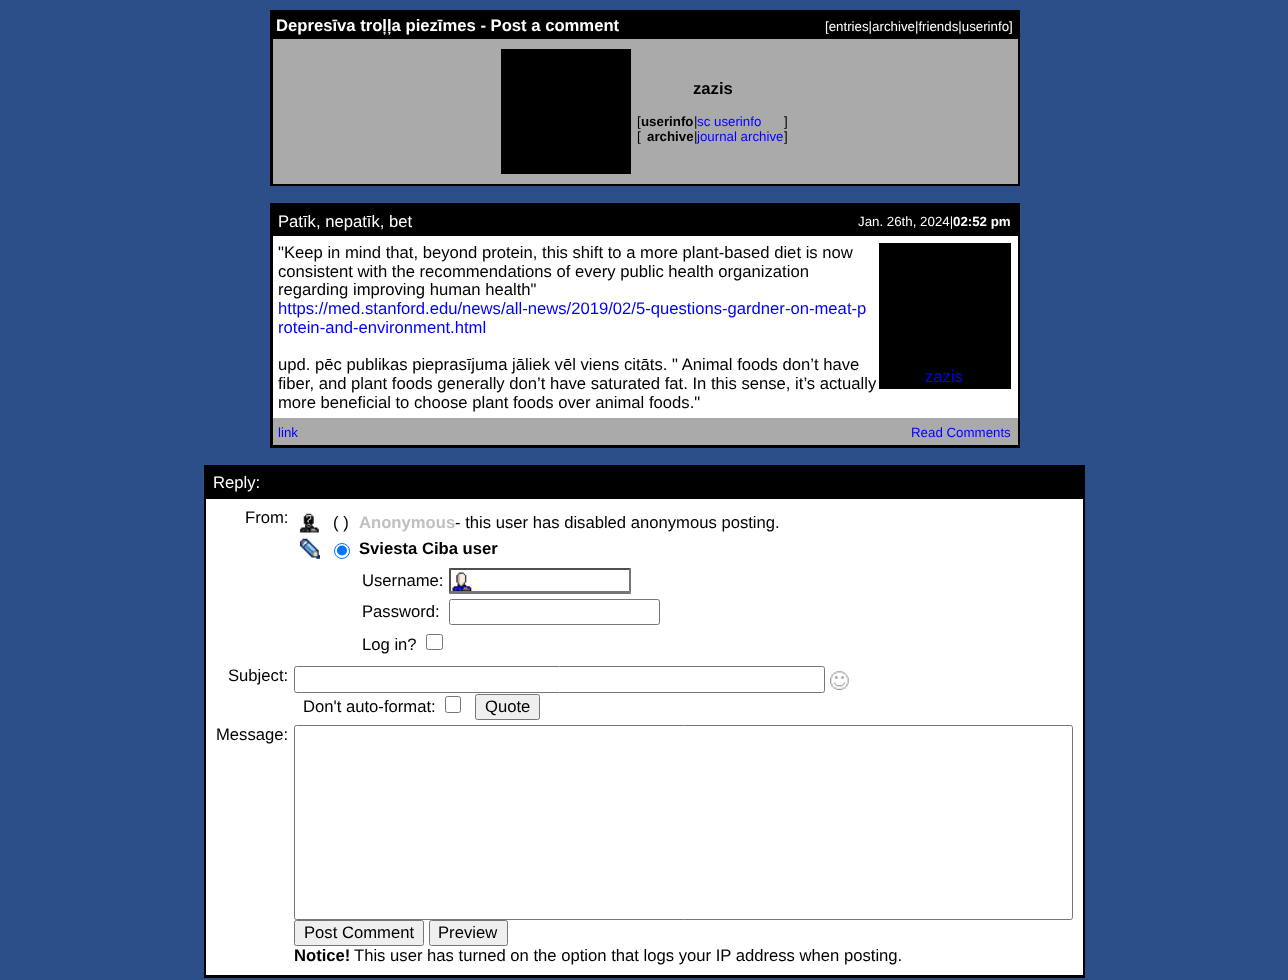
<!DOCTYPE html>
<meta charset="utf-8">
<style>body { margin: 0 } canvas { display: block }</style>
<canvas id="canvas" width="1288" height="980"></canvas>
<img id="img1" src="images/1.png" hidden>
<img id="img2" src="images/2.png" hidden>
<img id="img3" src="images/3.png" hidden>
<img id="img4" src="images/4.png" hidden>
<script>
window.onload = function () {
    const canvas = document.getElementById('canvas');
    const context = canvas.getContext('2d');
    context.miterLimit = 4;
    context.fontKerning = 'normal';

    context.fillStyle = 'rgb(45, 79, 137)';
    context.fillRect(0, 0, 1288, 980);
    context.fillStyle = 'rgb(0, 0, 0)';
    context.fillRect(270, 10, 750, 176);
    context.fillStyle = 'rgb(170, 170, 170)';
    context.fillRect(273, 39, 745, 145);
    context.fillStyle = 'rgb(0, 0, 0)';
    context.fillRect(501, 49, 130, 125);
    context.fillRect(270, 203, 750, 245);
    context.fillStyle = 'rgb(255, 255, 255)';
    context.fillRect(273, 236, 745, 182);
    context.fillStyle = 'rgb(0, 0, 0)';
    context.fillRect(879, 243, 132, 146);
    context.fillStyle = 'rgb(170, 170, 170)';
    context.fillRect(273, 418, 745, 27);
    context.fillStyle = 'rgb(0, 0, 0)';
    context.fillRect(204, 465, 881, 513);
    context.fillStyle = 'rgb(255, 255, 255)';
    context.fillRect(206, 499, 877, 476);
    context.drawImage(document.getElementById('img1'), 299, 513, 20, 20);
    context.drawImage(document.getElementById('img2'), 300, 538, 20, 21);
    context.beginPath();
    context.arc(342, 551, 7.5, 0, 2 * Math.PI);
    context.strokeStyle = 'rgb(0, 117, 255)';
    context.stroke();
    context.fillStyle = 'rgb(0, 117, 255)';
    context.beginPath();
    context.arc(342, 550.5, 5, 0, 2 * Math.PI);
    context.fill();
    context.drawImage(document.getElementById('img3'), 452, 572, 20, 19);
    context.fillStyle = 'rgb(79, 79, 79)';
    context.beginPath();
    context.moveTo(449, 568);
    context.lineTo(631, 568);
    context.lineTo(629, 570);
    context.lineTo(451, 570);
    context.closePath();
    context.fill();
    context.fillStyle = 'rgb(118, 118, 118)';
    context.beginPath();
    context.moveTo(631, 567.5);
    context.lineTo(631, 594);
    context.lineTo(629, 591);
    context.lineTo(629, 570);
    context.closePath();
    context.fill();
    context.beginPath();
    context.moveTo(631, 594);
    context.lineTo(449, 594);
    context.lineTo(451, 591);
    context.lineTo(629, 591);
    context.closePath();
    context.fill();
    context.fillStyle = 'rgb(79, 79, 79)';
    context.beginPath();
    context.moveTo(449, 594);
    context.lineTo(449, 567.5);
    context.lineTo(451, 570);
    context.lineTo(451, 591);
    context.closePath();
    context.fill();
    context.beginPath();
    context.roundRect(449.5, 599.5, 210, 25, 2);
    context.strokeStyle = 'rgb(118, 118, 118)';
    context.stroke();
    context.beginPath();
    context.roundRect(426.5, 634.5, 16, 15, 2);
    context.stroke();
    context.beginPath();
    context.roundRect(294.5, 666.5, 530, 26, 2);
    context.stroke();
    context.drawImage(document.getElementById('img4'), 830, 671, 19, 19);
    context.beginPath();
    context.roundRect(445.5, 696.5, 15, 16, 2);
    context.stroke();
    context.fillStyle = 'rgb(239, 239, 239)';
    context.beginPath();
    context.roundRect(475.5, 694.5, 64, 25, 2);
    context.fill();
    context.stroke();
    context.beginPath();
    context.roundRect(294.5, 725.5, 778, 194, 2);
    context.stroke();
    context.beginPath();
    context.roundRect(294.5, 920.5, 129, 25, 2);
    context.fill();
    context.stroke();
    context.beginPath();
    context.roundRect(429.5, 920.5, 78, 25, 2);
    context.fill();
    context.stroke();
    context.font = 'bold 16.65px Liberation Sans';
    context.fillStyle = 'rgb(255, 255, 255)';
    context.fillText('Depresīva troļļa piezīmes - Post a comment', 276, 31);
    context.font = '13.3px Liberation Sans';
    context.fillText('[entries|archive|friends|userinfo]', 825, 31);
    context.font = 'bold 16.65px Liberation Sans';
    context.fillStyle = 'rgb(0, 0, 0)';
    context.fillText('zazis', 693, 94);
    context.font = '13.3px Liberation Sans';
    context.fillText('[', 637, 126);
    context.font = 'bold 13.3px Liberation Sans';
    context.fillText('userinfo', 641, 126);
    context.font = '13.3px Liberation Sans';
    context.fillText('|', 694, 126);
    context.fillStyle = 'rgb(0, 0, 255)';
    context.fillText('sc userinfo', 697, 126);
    context.fillStyle = 'rgb(0, 0, 0)';
    context.fillText(']', 784, 126);
    context.fillText('[', 637, 141);
    context.font = 'bold 13.3px Liberation Sans';
    context.fillText('archive', 647, 141);
    context.font = '13.3px Liberation Sans';
    context.fillText('|', 694, 141);
    context.fillStyle = 'rgb(0, 0, 255)';
    context.fillText('journal archive', 697, 141);
    context.fillStyle = 'rgb(0, 0, 0)';
    context.fillText(']', 784, 141);
    context.font = '16.65px Liberation Sans';
    context.fillStyle = 'rgb(255, 255, 255)';
    context.fillText('Patīk, nepatīk, bet', 278, 227);
    context.font = '13.3px Liberation Sans';
    context.fillText('Jan. 26th, 2024|', 858, 226);
    context.font = 'bold 13.3px Liberation Sans';
    context.fillText('02:52 pm', 953, 226);
    context.font = '16.65px Liberation Sans';
    context.fillStyle = 'rgb(0, 0, 0)';
    context.fillText('"Keep in mind that, beyond protein, this shift to a more plant-based diet is now', 278, 258);
    context.fillText('consistent with the recommendations of every public health organization', 278, 277);
    context.fillText('regarding improving human health"', 278, 295);
    context.fillStyle = 'rgb(0, 0, 255)';
    context.fillText('https://med.stanford.edu/news/all-news/2019/02/5-questions-gardner-on-meat-p', 278, 314);
    context.fillText('rotein-and-environment.html', 278, 333);
    context.fillStyle = 'rgb(0, 0, 0)';
    context.fillText('upd. pēc publikas pieprasījuma jāliek vēl viens citāts. " Animal foods don’t have', 278, 370);
    context.fillText('fiber, and plant foods generally don’t have saturated fat. In this sense, it’s actually', 278, 389);
    context.fillStyle = 'rgb(0, 0, 255)';
    context.fillText('zazis', 925, 382);
    context.fillStyle = 'rgb(0, 0, 0)';
    context.fillText('more beneficial to choose plant foods over animal foods."', 278, 408);
    context.font = '13.3px Liberation Sans';
    context.fillStyle = 'rgb(0, 0, 255)';
    context.fillText('link', 278, 437);
    context.fillText('Read Comments', 911, 437);
    context.font = '16.65px Liberation Sans';
    context.fillStyle = 'rgb(255, 255, 255)';
    context.fillText('Reply:', 213, 488);
    context.fillStyle = 'rgb(0, 0, 0)';
    context.fillText('From:', 245, 523);
    context.fillText('( )', 333, 528);
    context.font = 'bold 16.65px Liberation Sans';
    context.fillStyle = 'rgb(192, 192, 192)';
    context.fillText('Anonymous', 359, 528);
    context.font = '16.65px Liberation Sans';
    context.fillStyle = 'rgb(0, 0, 0)';
    context.fillText('- this user has disabled anonymous posting.', 455, 528);
    context.font = 'bold 16.65px Liberation Sans';
    context.fillText('Sviesta Ciba user', 359, 554);
    context.font = '16.65px Liberation Sans';
    context.fillText('Username:', 362, 586);
    context.fillText('Password:', 362, 617);
    context.fillText('Log in?', 362, 650);
    context.fillText('Subject:', 228, 681);
    context.fillText('Don\'t auto-format:', 303, 712);
    context.fillText('Quote', 485, 712);
    context.fillText('Message:', 216, 740);
    context.fillText('Post Comment', 304, 938);
    context.fillText('Preview', 438, 938);
    context.font = 'bold 16.65px Liberation Sans';
    context.fillText('Notice!', 294, 961);
    context.font = '16.65px Liberation Sans';
    context.fillText('This user has turned on the option that logs your IP address when posting.', 354, 961);
};
</script>
